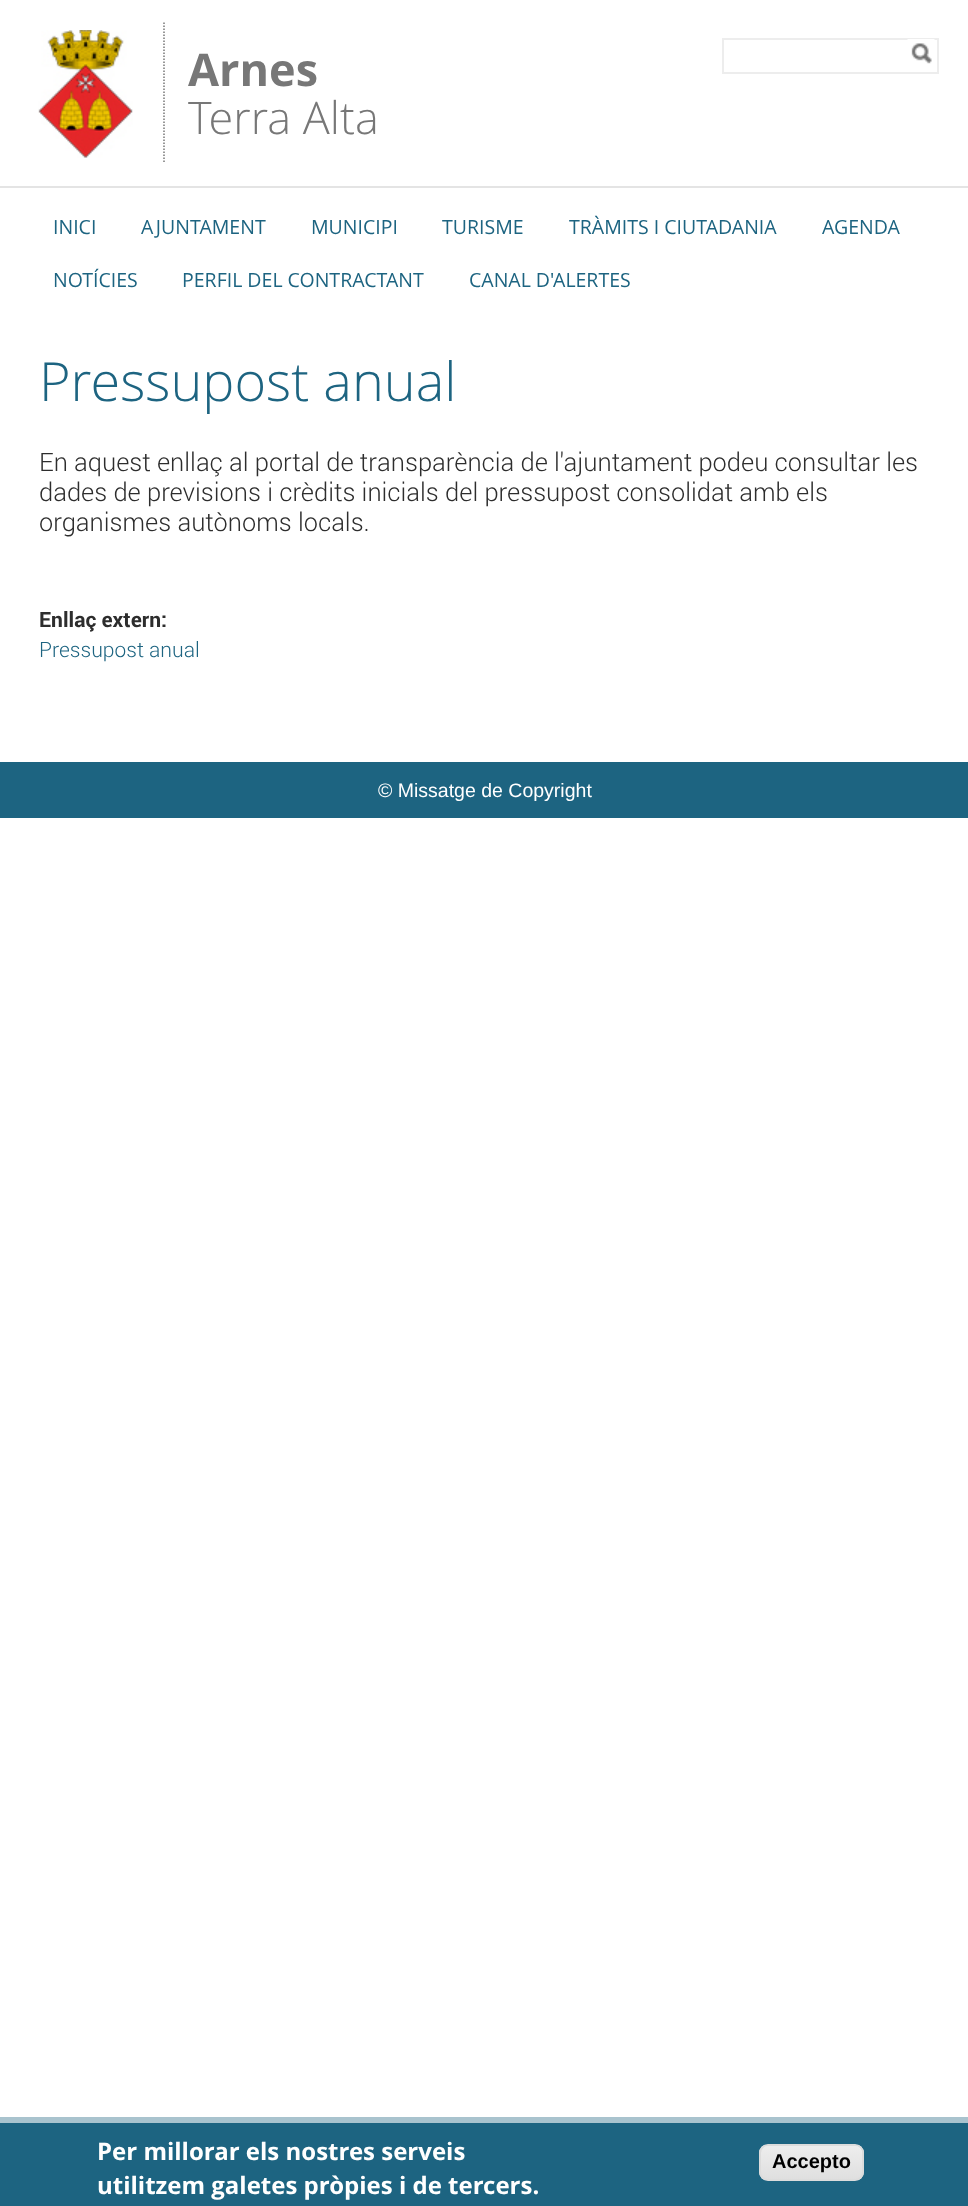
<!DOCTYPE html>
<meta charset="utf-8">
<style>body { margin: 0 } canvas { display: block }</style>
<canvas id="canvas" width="968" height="2206"></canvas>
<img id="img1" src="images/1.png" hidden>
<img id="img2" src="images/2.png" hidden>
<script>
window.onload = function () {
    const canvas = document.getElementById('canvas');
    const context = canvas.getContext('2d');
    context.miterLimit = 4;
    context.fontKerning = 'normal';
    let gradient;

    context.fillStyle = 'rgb(255, 255, 255)';
    context.fillRect(0, 0, 968, 2206);
    context.drawImage(document.getElementById('img1'), 38, 30, 95, 128);
    context.beginPath();
    context.moveTo(164, 22.5);
    context.lineTo(164, 163.5);
    context.strokeStyle = 'rgb(119, 119, 119)';
    context.lineWidth = 1.5;
    context.setLineDash([1.5, 1.5]);
    context.stroke();
    context.strokeStyle = 'rgb(237, 237, 237)';
    context.lineWidth = 2;
    context.setLineDash([]);
    context.strokeRect(723, 39, 215, 34);
    context.drawImage(document.getElementById('img2'), 907, 39, 28, 25);
    context.fillStyle = 'rgb(228, 228, 228)';
    context.fillRect(0, 186, 968, 2);
    context.fillStyle = 'rgb(29, 100, 129)';
    context.fillRect(0, 762, 968, 56);
    context.fillRect(0, 2123, 968, 83);
    context.fillStyle = 'rgb(169, 195, 206)';
    context.fillRect(0, 2117, 968, 6);
    context.save();
    context.beginPath();
    context.roundRect(759, 2144, 105, 37, 9);
    context.clip();
    gradient = context.createLinearGradient(812, 2145, 812, 2180);
    gradient.addColorStop(0.05, 'rgb(237, 237, 237)');
    gradient.addColorStop(1, 'rgb(223, 223, 223)');
    context.fillStyle = gradient;
    context.fillRect(759, 2145, 105, 35);
    context.restore();
    context.fillStyle = 'rgb(255, 255, 255)';
    context.beginPath();
    context.moveTo(768, 2146);
    context.lineTo(855, 2146);
    context.bezierCurveTo(859, 2146, 862, 2150, 862, 2154);
    context.lineTo(862, 2174);
    context.lineTo(862, 2177);
    context.bezierCurveTo(862, 2175, 863, 2174, 863, 2172);
    context.lineTo(863, 2153);
    context.bezierCurveTo(863, 2149, 859, 2145, 855, 2145);
    context.lineTo(769, 2145);
    context.bezierCurveTo(766, 2145, 764, 2147, 762, 2149);
    context.bezierCurveTo(764, 2147, 766, 2146, 768, 2146);
    context.closePath();
    context.fill();
    context.beginPath();
    context.roundRect(760, 2145, 103, 35, 8);
    context.strokeStyle = 'rgb(220, 220, 220)';
    context.stroke();
    context.font = 'bold 45px Open Sans';
    context.fillStyle = 'rgb(119, 119, 119)';
    context.fillText('Arnes', 188, 86);
    context.font = '300 45px Open Sans';
    context.fillText('Terra Alta', 188, 134);
    context.font = '19.5px Open Sans';
    context.fillStyle = 'rgb(29, 100, 129)';
    context.fillText('INICI', 53, 234);
    context.fillText('AJUNTAMENT', 141, 234);
    context.fillText('MUNICIPI', 311, 234);
    context.fillText('TURISME', 442, 234);
    context.fillText('TRÀMITS I CIUTADANIA', 569, 234);
    context.fillText('AGENDA', 822, 234);
    context.fillText('NOTÍCIES', 53, 287);
    context.fillText('PERFIL DEL CONTRACTANT', 182, 287);
    context.fillText('CANAL D\'ALERTES', 469, 287);
    context.font = '300 54px Open Sans';
    context.fillText('Pressupost anual', 39, 401);
    context.font = '300 25.5px Roboto';
    context.fillStyle = 'rgb(45, 45, 45)';
    context.fillText('En aquest enllaç al portal de transparència de l\'ajuntament podeu consultar les', 39, 471);
    context.fillText('dades de previsions i crèdits inicials del pressupost consolidat amb els', 39, 501);
    context.fillText('organismes autònoms locals.', 39, 531);
    context.font = 'bold 21px Roboto';
    context.fillText('Enllaç extern:', 39, 627);
    context.font = '300 21px Roboto';
    context.fillStyle = 'rgb(29, 100, 129)';
    context.fillText('Pressupost anual', 39, 657);
    context.font = '19.5px Liberation Sans';
    context.fillStyle = 'rgb(255, 255, 255)';
    context.fillText('© Missatge de Copyright', 378, 797);
    context.font = 'bold 24px Open Sans';
    context.fillText('Per millorar els nostres serveis', 97, 2160);
    context.fillText('utilitzem galetes pròpies i de tercers.', 97, 2194);
    context.font = 'bold 20px Liberation Sans';
    context.fillStyle = 'rgb(0, 0, 0)';
    context.fillText('Accepto', 772, 2168);
};
</script>
